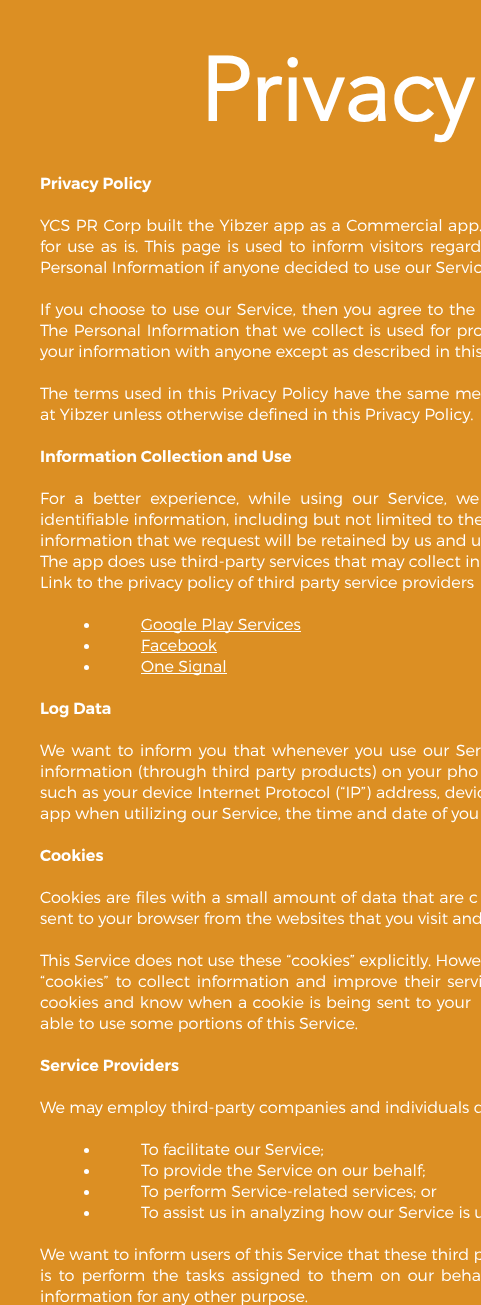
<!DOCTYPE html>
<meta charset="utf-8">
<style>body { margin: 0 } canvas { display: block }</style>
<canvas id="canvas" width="481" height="1305"></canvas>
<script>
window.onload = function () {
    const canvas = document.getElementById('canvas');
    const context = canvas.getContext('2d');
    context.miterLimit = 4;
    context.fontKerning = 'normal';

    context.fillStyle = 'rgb(220, 143, 35)';
    context.fillRect(0, 0, 481, 1305);
    context.fillStyle = 'rgb(255, 255, 255)';
    context.beginPath();
    context.arc(86.5, 625.5, 2.5, 0, 2 * Math.PI);
    context.fill();
    context.fillRect(141, 631, 160, 1);
    context.beginPath();
    context.arc(86.5, 646.5, 2.5, 0, 2 * Math.PI);
    context.fill();
    context.fillRect(141, 652, 76, 1);
    context.beginPath();
    context.arc(86.5, 667.5, 2.5, 0, 2 * Math.PI);
    context.fill();
    context.fillRect(141, 673, 86, 1);
    context.beginPath();
    context.arc(86.5, 1150.5, 2.5, 0, 2 * Math.PI);
    context.fill();
    context.beginPath();
    context.arc(86.5, 1171.5, 2.5, 0, 2 * Math.PI);
    context.fill();
    context.beginPath();
    context.arc(86.5, 1192.5, 2.5, 0, 2 * Math.PI);
    context.fill();
    context.beginPath();
    context.arc(86.5, 1213.5, 2.5, 0, 2 * Math.PI);
    context.fill();
    context.font = 'bold 89px "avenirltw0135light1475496"';
    context.fillText('Privacy', 200, 121);
    context.font = '600 16px Montserrat';
    context.fillText('Privacy Policy', 40, 189);
    context.wordSpacing = '1px';
    context.font = '300 16px Montserrat';
    context.fillText('YCS PR Corp built the Yibzer app as a Commercial app.', 40, 231);
    context.wordSpacing = '2px';
    context.fillText('for use as is. This page is used to inform visitors regard', 40, 252);
    context.wordSpacing = '0px';
    context.fillText('Personal Information if anyone decided to use our Servic', 40, 273);
    context.wordSpacing = '1.25px';
    context.fillText('If you choose to use our Service, then you agree to the', 40, 315);
    context.fillText('The Personal Information that we collect is used for pro', 40, 336);
    context.wordSpacing = '0px';
    context.fillText('your information with anyone except as described in this', 40, 357);
    context.wordSpacing = '1px';
    context.fillText('The terms used in this Privacy Policy have the same me', 40, 399);
    context.wordSpacing = '0px';
    context.fillText('at Yibzer unless otherwise defined in this Privacy Policy.', 40, 420);
    context.font = '600 16px Montserrat';
    context.fillText('Information Collection and Use', 40, 462);
    context.wordSpacing = '5px';
    context.font = '300 16px Montserrat';
    context.fillText('For a better experience, while using our Service, we', 40, 504);
    context.wordSpacing = '0.25px';
    context.fillText('identifiable information, including but not limited to the', 40, 525);
    context.wordSpacing = '0px';
    context.fillText('information that we request will be retained by us and u', 40, 546);
    context.fillText('The app does use third-party services that may collect in', 40, 567);
    context.fillText('Link to the privacy policy of third party service providers', 40, 588);
    context.fillText('Google Play Services', 141, 630);
    context.fillText('Facebook', 141, 651);
    context.fillText('One Signal', 141, 672);
    context.font = '600 16px Montserrat';
    context.fillText('Log Data', 40, 714);
    context.wordSpacing = '2.1px';
    context.font = '300 16px Montserrat';
    context.fillText('We want to inform you that whenever you use our Ser', 40, 756);
    context.wordSpacing = '1px';
    context.fillText('information (through third party products) on your pho', 40, 777);
    context.wordSpacing = '0.5px';
    context.fillText('such as your device Internet Protocol (“IP”) address, devic', 40, 798);
    context.wordSpacing = '0px';
    context.fillText('app when utilizing our Service, the time and date of you', 40, 819);
    context.font = '600 16px Montserrat';
    context.fillText('Cookies', 40, 861);
    context.wordSpacing = '0.75px';
    context.font = '300 16px Montserrat';
    context.fillText('Cookies are files with a small amount of data that are c', 40, 903);
    context.wordSpacing = '0px';
    context.fillText('sent to your browser from the websites that you visit and', 40, 924);
    context.fillText('This Service does not use these “cookies” explicitly. Howe', 40, 966);
    context.wordSpacing = '2.25px';
    context.fillText('“cookies” to collect information and improve their servi', 40, 987);
    context.wordSpacing = '1px';
    context.fillText('cookies and know when a cookie is being sent to your', 40, 1008);
    context.wordSpacing = '0px';
    context.fillText('able to use some portions of this Service.', 40, 1029);
    context.font = '600 16px Montserrat';
    context.fillText('Service Providers', 40, 1071);
    context.font = '300 16px Montserrat';
    context.fillText('We may employ third-party companies and individuals d', 40, 1113);
    context.fillText('To facilitate our Service;', 141, 1155);
    context.fillText('To provide the Service on our behalf;', 141, 1176);
    context.fillText('To perform Service-related services; or', 141, 1197);
    context.fillText('To assist us in analyzing how our Service is u', 141, 1218);
    context.fillText('We want to inform users of this Service that these third p', 40, 1260);
    context.wordSpacing = '2.6px';
    context.fillText('is to perform the tasks assigned to them on our beha', 40, 1281);
    context.wordSpacing = '0px';
    context.fillText('information for any other purpose.', 40, 1302);
};
</script>
